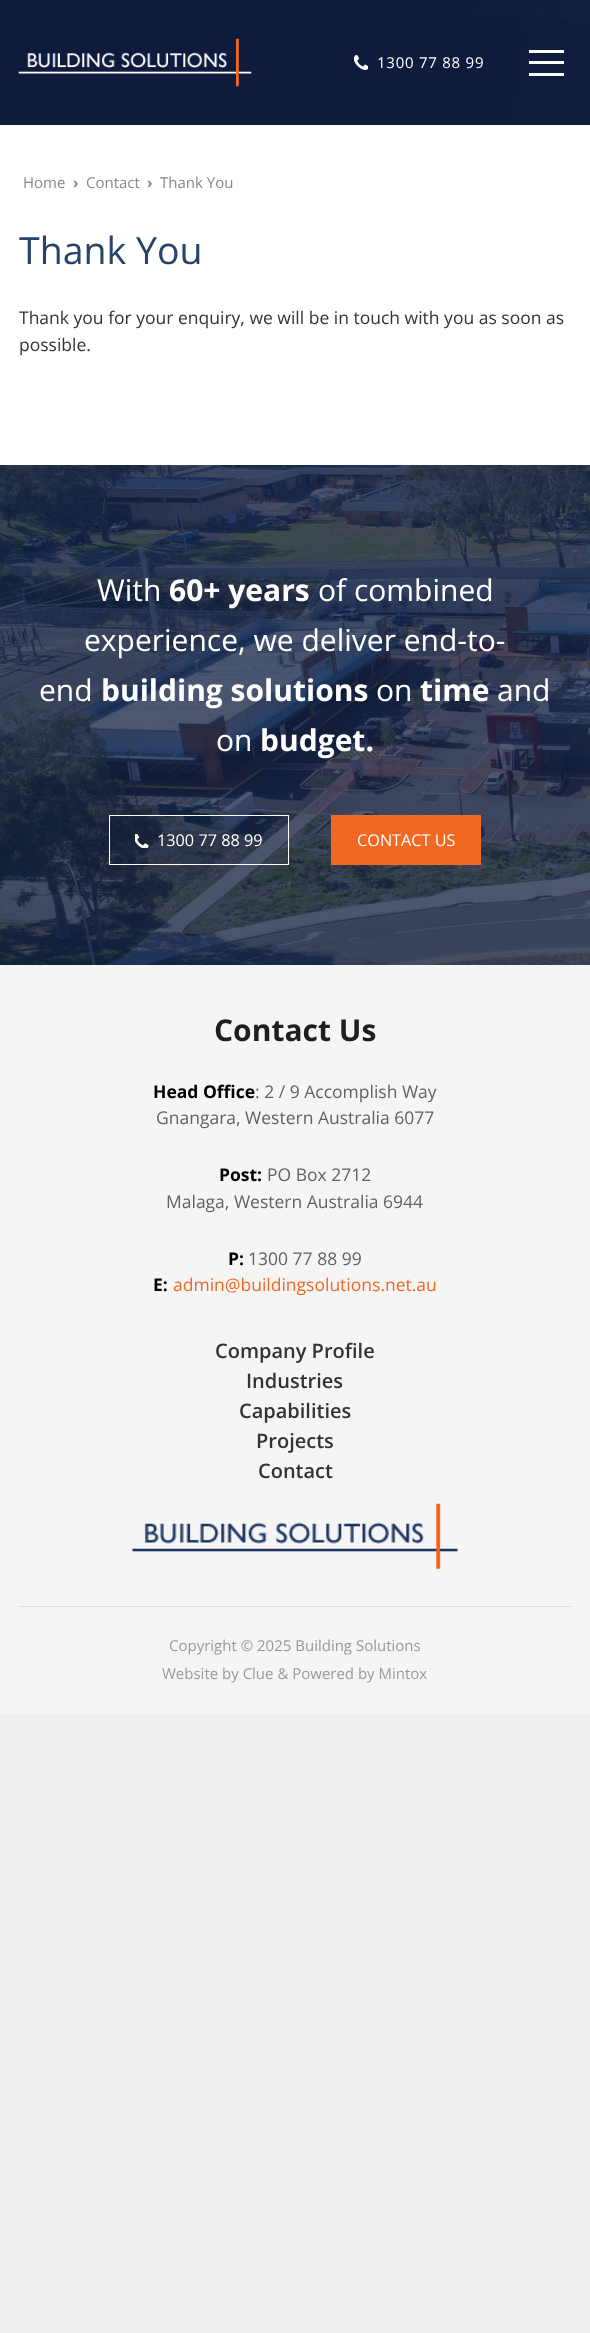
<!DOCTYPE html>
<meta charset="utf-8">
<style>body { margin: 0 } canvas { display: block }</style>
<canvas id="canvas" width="590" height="2333"></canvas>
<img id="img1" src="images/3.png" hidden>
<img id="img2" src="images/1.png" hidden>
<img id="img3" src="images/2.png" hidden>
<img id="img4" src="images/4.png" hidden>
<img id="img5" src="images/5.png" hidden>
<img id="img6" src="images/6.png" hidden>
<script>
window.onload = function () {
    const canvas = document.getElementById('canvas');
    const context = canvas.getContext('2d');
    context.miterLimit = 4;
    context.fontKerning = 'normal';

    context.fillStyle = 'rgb(239, 239, 239)';
    context.fillRect(0, 0, 590, 2333);
    context.drawImage(document.getElementById('img1'), 0, 0, 590, 125);
    context.drawImage(document.getElementById('img2'), 18, 38, 234, 49);
    context.drawImage(document.getElementById('img3'), 354, 55, 14, 15);
    context.fillStyle = 'rgb(255, 255, 255)';
    context.fillRect(529, 50, 35, 3);
    context.fillRect(529, 61, 35, 3);
    context.fillRect(529, 73, 35, 3);
    context.fillRect(0, 125, 590, 340);
    context.drawImage(document.getElementById('img4'), 0, 465, 590, 500);
    context.strokeStyle = 'rgb(255, 255, 255)';
    context.strokeRect(109.5, 815.5, 179, 49);
    context.drawImage(document.getElementById('img5'), 135, 834, 14, 14);
    context.fillStyle = 'rgb(242, 103, 33)';
    context.fillRect(331, 815, 150, 50);
    context.fillStyle = 'rgb(245, 245, 245)';
    context.fillRect(0, 965, 590, 748);
    context.drawImage(document.getElementById('img6'), 132, 1503, 326, 66);
    context.fillStyle = 'rgb(221, 221, 221)';
    context.fillRect(19, 1606, 552, 1);
    context.letterSpacing = '0.75px';
    context.font = '15px Open Sans';
    context.fillStyle = 'rgb(255, 255, 255)';
    context.fillText('1300 77 88 99', 377, 68);
    context.letterSpacing = '0px';
    context.fillStyle = 'rgb(136, 136, 136)';
    context.fillText('Home', 23, 188);
    context.font = 'bold 15px Open Sans';
    context.fillText('›', 73, 188);
    context.font = '15px Open Sans';
    context.fillText('Contact', 86, 188);
    context.font = 'bold 15px Open Sans';
    context.fillText('›', 147, 188);
    context.font = '15px Open Sans';
    context.fillText('Thank You', 160, 188);
    context.font = '37.5px Open Sans';
    context.fillStyle = 'rgb(39, 67, 105)';
    context.fillText('Thank You', 19, 264);
    context.font = '17.5px Open Sans';
    context.fillStyle = 'rgb(51, 51, 51)';
    context.fillText('Thank you for your enquiry, we will be in touch with you as soon as', 19, 324);
    context.fillText('possible.', 19, 351);
    context.font = '30px Open Sans';
    context.fillStyle = 'rgb(255, 255, 255)';
    context.fillText('With', 97, 601);
    context.font = 'bold 30px Open Sans';
    context.fillText('60+ years', 169, 601);
    context.font = '30px Open Sans';
    context.fillText('of combined', 318, 601);
    context.fillText('experience, we deliver end-to-', 84, 651);
    context.fillText('end', 39, 701);
    context.font = 'bold 30px Open Sans';
    context.fillText('building solutions', 101, 701);
    context.font = '30px Open Sans';
    context.fillText('on', 376, 701);
    context.font = 'bold 30px Open Sans';
    context.fillText('time', 420, 701);
    context.font = '30px Open Sans';
    context.fillText('and', 497, 701);
    context.fillText('on', 216, 751);
    context.font = 'bold 30px Open Sans';
    context.fillText('budget.', 260, 751);
    context.font = '16.25px Open Sans';
    context.fillText('1300 77 88 99', 157, 846);
    context.fillText('CONTACT US', 357, 846);
    context.font = 'bold 30px Open Sans';
    context.fillStyle = 'rgb(30, 30, 30)';
    context.fillText('Contact Us', 214, 1041);
    context.font = 'bold 17.5px Open Sans';
    context.fillStyle = 'rgb(0, 0, 0)';
    context.fillText('Head Office', 153, 1098);
    context.font = '17.5px Open Sans';
    context.fillStyle = 'rgb(98, 98, 98)';
    context.fillText(': 2 / 9 Accomplish Way', 255, 1098);
    context.fillText('Gnangara, Western Australia 6077', 156, 1124);
    context.font = 'bold 17.5px Open Sans';
    context.fillStyle = 'rgb(0, 0, 0)';
    context.fillText('Post:', 219, 1181);
    context.font = '17.5px Open Sans';
    context.fillStyle = 'rgb(98, 98, 98)';
    context.fillText('PO Box 2712', 267, 1181);
    context.fillText('Malaga, Western Australia 6944', 166, 1208);
    context.font = 'bold 17.5px Open Sans';
    context.fillStyle = 'rgb(0, 0, 0)';
    context.fillText('P:', 228, 1265);
    context.font = '17.5px Open Sans';
    context.fillStyle = 'rgb(98, 98, 98)';
    context.fillText('1300 77 88 99', 248, 1265);
    context.font = 'bold 17.5px Open Sans';
    context.fillStyle = 'rgb(0, 0, 0)';
    context.fillText('E:', 153, 1291);
    context.font = '17.5px Open Sans';
    context.fillStyle = 'rgb(242, 103, 33)';
    context.fillText('admin@buildingsolutions.net.au', 173, 1291);
    context.font = '600 20px Open Sans';
    context.fillStyle = 'rgb(51, 51, 51)';
    context.fillText('Company Profile', 215, 1358);
    context.fillText('Industries', 246, 1388);
    context.fillText('Capabilities', 239, 1418);
    context.fillText('Projects', 256, 1448);
    context.fillText('Contact', 258, 1478);
    context.font = '15px Open Sans';
    context.fillStyle = 'rgb(153, 153, 153)';
    context.fillText('Copyright © 2025 Building Solutions', 169, 1651);
    context.fillText('Website by Clue & Powered by Mintox', 162, 1679);
};
</script>
